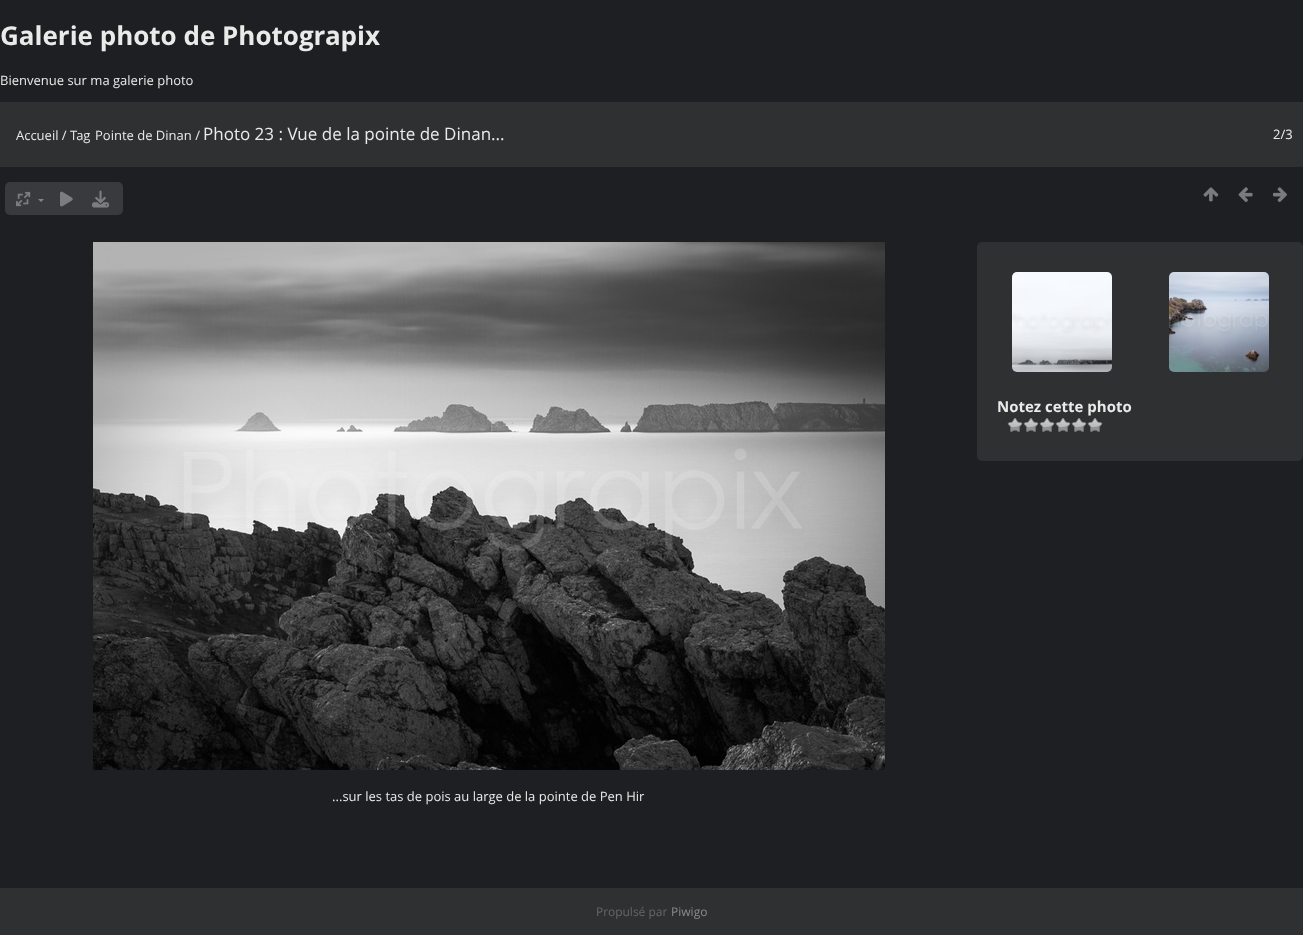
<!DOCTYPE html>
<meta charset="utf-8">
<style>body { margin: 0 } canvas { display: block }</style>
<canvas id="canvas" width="1303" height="935"></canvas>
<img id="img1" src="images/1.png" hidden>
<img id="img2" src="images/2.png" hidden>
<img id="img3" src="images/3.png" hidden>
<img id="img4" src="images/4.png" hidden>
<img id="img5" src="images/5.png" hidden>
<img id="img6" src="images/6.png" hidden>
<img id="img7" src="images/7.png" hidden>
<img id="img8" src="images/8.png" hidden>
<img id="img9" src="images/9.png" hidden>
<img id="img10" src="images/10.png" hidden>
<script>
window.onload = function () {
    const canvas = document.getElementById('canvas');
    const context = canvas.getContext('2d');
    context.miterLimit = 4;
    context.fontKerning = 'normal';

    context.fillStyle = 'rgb(30, 31, 35)';
    context.fillRect(0, 0, 1303, 935);
    context.fillStyle = 'rgb(47, 48, 50)';
    context.fillRect(0, 102, 1303, 65);
    context.fillStyle = 'rgb(57, 58, 61)';
    context.beginPath();
    context.roundRect(5, 182, 118, 33, 5);
    context.fill();
    context.drawImage(document.getElementById('img1'), 16, 191, 15, 16);
    context.fillStyle = 'rgb(132, 133, 136)';
    context.beginPath();
    context.moveTo(38, 199);
    context.lineTo(44, 199);
    context.lineTo(41, 202);
    context.closePath();
    context.fill();
    context.drawImage(document.getElementById('img2'), 60, 191, 13, 16);
    context.drawImage(document.getElementById('img3'), 92, 190, 17, 18);
    context.drawImage(document.getElementById('img4'), 1203, 187, 16, 15);
    context.drawImage(document.getElementById('img5'), 1238, 187, 15, 15);
    context.drawImage(document.getElementById('img6'), 1273, 187, 14, 15);
    context.fillStyle = 'rgb(47, 48, 50)';
    context.beginPath();
    context.roundRect(977, 242, 326, 219, 5);
    context.fill();
    context.drawImage(document.getElementById('img7'), 1012, 272, 100, 100);
    context.drawImage(document.getElementById('img8'), 1169, 272, 100, 100);
    context.drawImage(document.getElementById('img9'), 1007, 418, 16, 14);
    context.drawImage(document.getElementById('img9'), 1023, 418, 16, 14);
    context.drawImage(document.getElementById('img9'), 1039, 418, 16, 14);
    context.drawImage(document.getElementById('img9'), 1055, 418, 16, 14);
    context.drawImage(document.getElementById('img9'), 1071, 418, 16, 14);
    context.drawImage(document.getElementById('img9'), 1087, 418, 16, 14);
    context.drawImage(document.getElementById('img10'), 93, 242, 792, 528);
    context.fillRect(0, 888, 1303, 47);
    context.font = 'bold 26px Open Sans';
    context.fillStyle = 'rgb(234, 234, 233)';
    context.fillText('Galerie photo de Photograpix', 0, 45);
    context.font = '13px Open Sans';
    context.fillText('Bienvenue sur ma galerie photo', 0, 85);
    context.fillText('Accueil / Tag', 16, 140);
    context.fillText('Pointe de Dinan /', 95, 140);
    context.font = '17px Open Sans';
    context.fillText('Photo 23 : Vue de la pointe de Dinan...', 203, 140);
    context.font = '13px Open Sans';
    context.fillText('2/3', 1273, 139);
    context.font = 'bold 15px Open Sans';
    context.fillText('Notez cette photo', 997, 412);
    context.font = '13px Open Sans';
    context.fillText('...sur les tas de pois au large de la pointe de Pen Hir', 332, 801);
    context.font = '12px Open Sans';
    context.fillStyle = 'rgb(102, 102, 102)';
    context.fillText('Propulsé par', 596, 916);
    context.fillStyle = 'rgb(141, 139, 139)';
    context.fillText('Piwigo', 671, 916);
};
</script>
